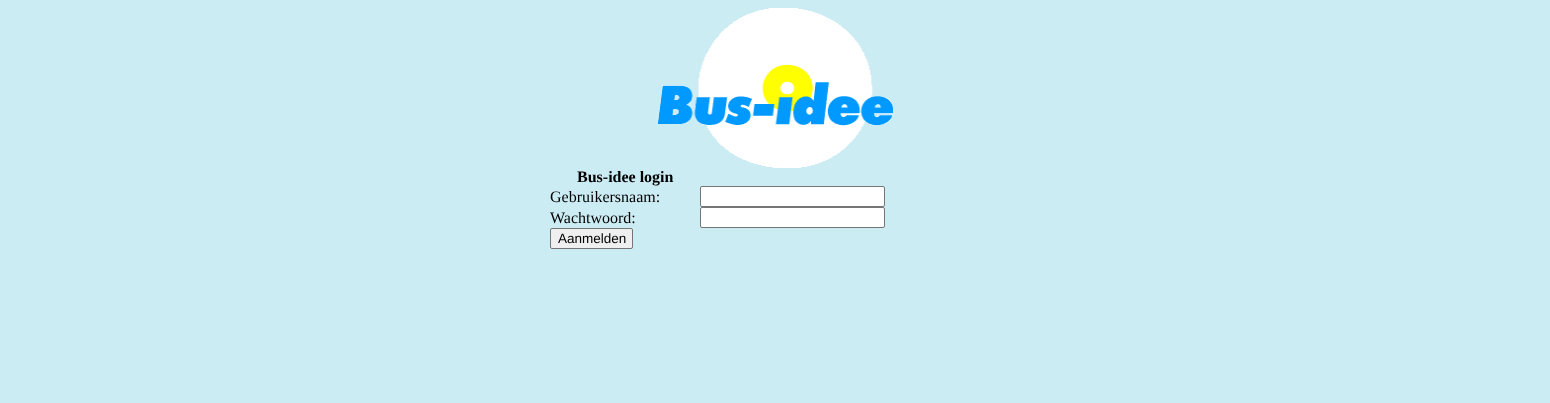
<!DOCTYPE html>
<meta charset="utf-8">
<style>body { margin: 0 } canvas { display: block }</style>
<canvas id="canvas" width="1550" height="403"></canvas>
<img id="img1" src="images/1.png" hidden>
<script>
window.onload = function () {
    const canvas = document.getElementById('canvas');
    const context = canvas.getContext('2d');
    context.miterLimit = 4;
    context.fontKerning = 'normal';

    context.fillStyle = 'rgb(204, 236, 244)';
    context.fillRect(0, 0, 1550, 403);
    context.drawImage(document.getElementById('img1'), 658, 8, 235, 160);
    context.fillStyle = 'rgb(255, 255, 255)';
    context.beginPath();
    context.roundRect(700.5, 186.5, 184, 20, 1.5);
    context.fill();
    context.strokeStyle = 'rgb(118, 118, 118)';
    context.stroke();
    context.beginPath();
    context.roundRect(700.5, 207.5, 184, 20, 1.5);
    context.fill();
    context.stroke();
    context.fillStyle = 'rgb(239, 239, 239)';
    context.beginPath();
    context.roundRect(550.5, 228.5, 82, 20, 1.5);
    context.fill();
    context.stroke();
    context.font = 'bold 16px Liberation Serif';
    context.fillStyle = 'rgb(0, 0, 0)';
    context.fillText('Bus-idee login', 577, 182);
    context.font = '16px Liberation Serif';
    context.fillText('Gebruikersnaam:', 550, 202);
    context.fillText('Wachtwoord:', 550, 223);
    context.font = '13.5px Liberation Sans';
    context.fillText('Aanmelden', 558, 243);
};
</script>
